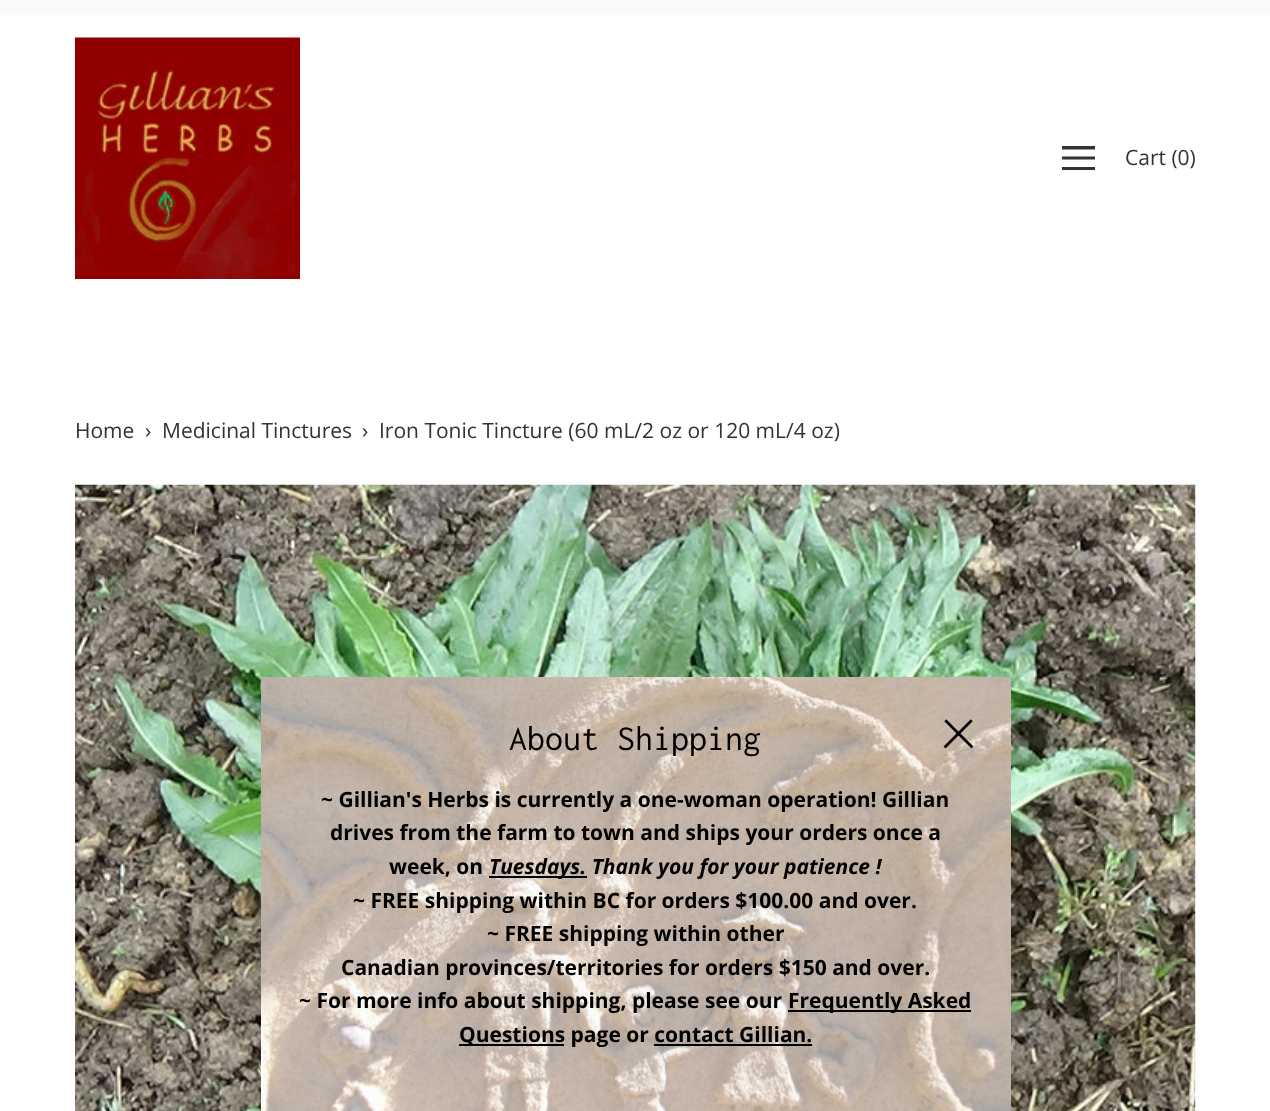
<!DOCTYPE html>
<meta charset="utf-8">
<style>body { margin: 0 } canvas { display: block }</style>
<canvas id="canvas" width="1270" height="1111"></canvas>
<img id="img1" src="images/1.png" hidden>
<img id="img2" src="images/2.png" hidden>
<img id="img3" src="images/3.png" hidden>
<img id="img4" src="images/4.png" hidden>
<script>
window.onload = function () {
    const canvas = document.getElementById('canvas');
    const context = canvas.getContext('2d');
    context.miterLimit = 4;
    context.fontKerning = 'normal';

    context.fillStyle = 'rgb(255, 255, 255)';
    context.fillRect(0, 0, 1270, 1111);
    context.fillStyle = 'rgb(250, 250, 250)';
    context.fillRect(0, 0, 1270, 15);
    context.drawImage(document.getElementById('img1'), 75, 37, 225, 242);
    context.fillStyle = 'rgb(51, 51, 51)';
    context.beginPath();
    context.moveTo(1062, 146);
    context.lineTo(1062, 149.5);
    context.lineTo(1095, 149.5);
    context.lineTo(1095, 146);
    context.closePath();
    context.moveTo(1062, 156.5);
    context.lineTo(1062, 159.5);
    context.lineTo(1095, 159.5);
    context.lineTo(1095, 156.5);
    context.closePath();
    context.moveTo(1062, 167);
    context.lineTo(1062, 170);
    context.lineTo(1095, 170);
    context.lineTo(1095, 167);
    context.closePath();
    context.fill();
    context.drawImage(document.getElementById('img2'), 75, 484, 1121, 627);
    context.drawImage(document.getElementById('img3'), 261, 677, 750, 434);
    context.drawImage(document.getElementById('img4'), 943, 719, 31, 30);
    context.fillStyle = 'rgb(0, 0, 0)';
    context.fillRect(489, 876, 98, 2);
    context.fillRect(788, 1010, 183, 2);
    context.fillRect(459, 1044, 105, 2);
    context.fillRect(654, 1044, 158, 2);
    context.font = '21px Open Sans';
    context.fillStyle = 'rgb(51, 51, 51)';
    context.fillText('Cart (0)', 1125, 165);
    context.fillText('Home', 75, 438);
    context.fillText('›', 145, 438);
    context.fillText('Medicinal Tinctures', 162, 438);
    context.fillText('›', 362, 438);
    context.fillText('Iron Tonic Tincture (60 mL/2 oz or 120 mL/4 oz)', 379, 438);
    context.font = '36px Inconsolata';
    context.fillStyle = 'rgb(0, 0, 0)';
    context.fillText('About Shipping', 509, 750);
    context.font = 'bold 21px Open Sans';
    context.fillText('~ Gillian\'s Herbs is currently a one-woman operation! Gillian', 321, 807);
    context.fillText('drives from the farm to town and ships your orders once a', 330, 840);
    context.fillText('week, on', 389, 874);
    context.font = 'italic bold 21px Open Sans';
    context.fillText('Tuesdays. Thank you for your patience !', 489, 874);
    context.font = 'bold 21px Open Sans';
    context.fillText('~ FREE shipping within BC for orders $100.00 and over.', 353, 908);
    context.fillText('~ FREE shipping within other', 487, 941);
    context.fillText('Canadian provinces/territories for orders $150 and over.', 341, 975);
    context.fillText('~ For more info about shipping, please see our', 299, 1008);
    context.fillText('Frequently Asked', 788, 1008);
    context.fillText('Questions page or contact Gillian.', 459, 1042);
};
</script>
